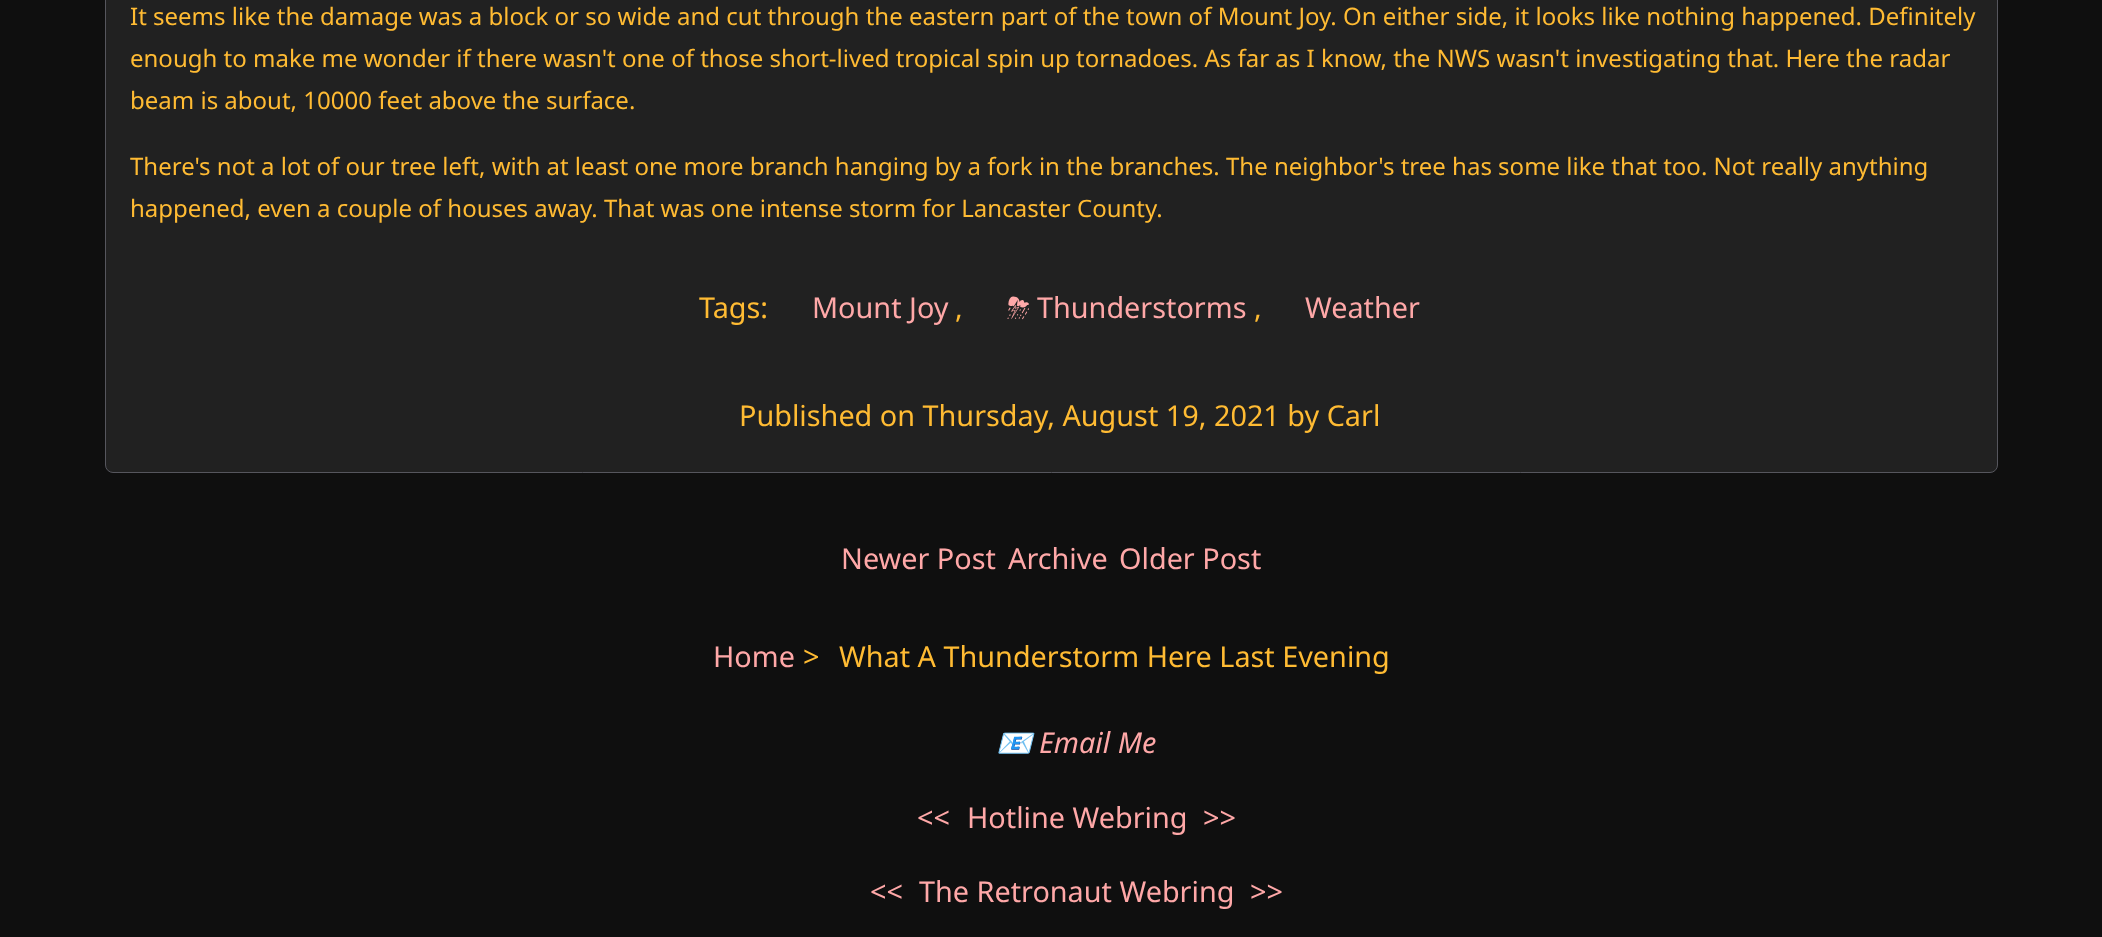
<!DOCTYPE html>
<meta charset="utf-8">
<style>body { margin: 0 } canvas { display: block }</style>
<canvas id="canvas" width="2102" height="937"></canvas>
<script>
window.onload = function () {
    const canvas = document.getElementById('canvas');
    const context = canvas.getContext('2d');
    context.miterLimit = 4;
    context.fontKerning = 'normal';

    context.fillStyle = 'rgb(15, 15, 15)';
    context.fillRect(0, 0, 2102, 937);
    context.fillStyle = 'rgb(33, 33, 33)';
    context.beginPath();
    context.roundRect(105.5, -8.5, 1892, 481, 7.5);
    context.fill();
    context.strokeStyle = 'rgb(86, 86, 93)';
    context.stroke();
    context.font = '24px Noto Sans';
    context.fillStyle = 'rgb(255, 187, 51)';
    context.fillText('It seems like the damage was a block or so wide and cut through the eastern part of the town of Mount Joy. On either side, it looks like nothing happened. Definitely', 130, 25);
    context.fillText('enough to make me wonder if there wasn\'t one of those short-lived tropical spin up tornadoes. As far as I know, the NWS wasn\'t investigating that. Here the radar', 130, 67);
    context.fillText('beam is about, 10000 feet above the surface.', 130, 109);
    context.fillText('There\'s not a lot of our tree left, with at least one more branch hanging by a fork in the branches. The neighbor\'s tree has some like that too. Not really anything', 130, 175);
    context.fillText('happened, even a couple of houses away. That was one intense storm for Lancaster County.', 130, 217);
    context.font = '28.8px Noto Sans';
    context.fillText('Tags:', 699, 318);
    context.fillStyle = 'rgb(255, 168, 168)';
    context.fillText('Mount Joy', 812, 318);
    context.fillStyle = 'rgb(255, 187, 51)';
    context.fillText(',', 955, 318);
    context.font = '28.8px FreeSerif';
    context.fillStyle = 'rgb(255, 168, 168)';
    context.fillText('⛈', 1007, 318);
    context.font = '28.8px Noto Sans';
    context.fillText('Thunderstorms', 1037, 318);
    context.fillStyle = 'rgb(255, 187, 51)';
    context.fillText(',', 1254, 318);
    context.fillStyle = 'rgb(255, 168, 168)';
    context.fillText('Weather', 1305, 318);
    context.fillStyle = 'rgb(255, 187, 51)';
    context.fillText('Published on Thursday, August 19, 2021 by Carl', 739, 426);
    context.fillStyle = 'rgb(255, 168, 168)';
    context.fillText('Newer Post', 841, 569);
    context.fillText('Archive', 1008, 569);
    context.fillText('Older Post', 1119, 569);
    context.fillText('Home', 713, 667);
    context.fillStyle = 'rgb(255, 187, 51)';
    context.fillText('>', 803, 667);
    context.fillText('What A Thunderstorm Here Last Evening', 839, 667);
    context.font = 'italic 28.8px Noto Color Emoji';
    context.fillStyle = 'rgb(255, 168, 168)';
    context.fillText('📧', 996, 753);
    context.font = 'italic 28.8px Noto Sans';
    context.fillText('Email Me', 1039, 753);
    context.font = '28.8px Noto Sans';
    context.fillText('<<', 917, 828);
    context.fillText('Hotline Webring', 967, 828);
    context.fillText('>>', 1203, 828);
    context.fillText('<<', 870, 902);
    context.fillText('The Retronaut Webring', 919, 902);
    context.fillText('>>', 1250, 902);
};
</script>
